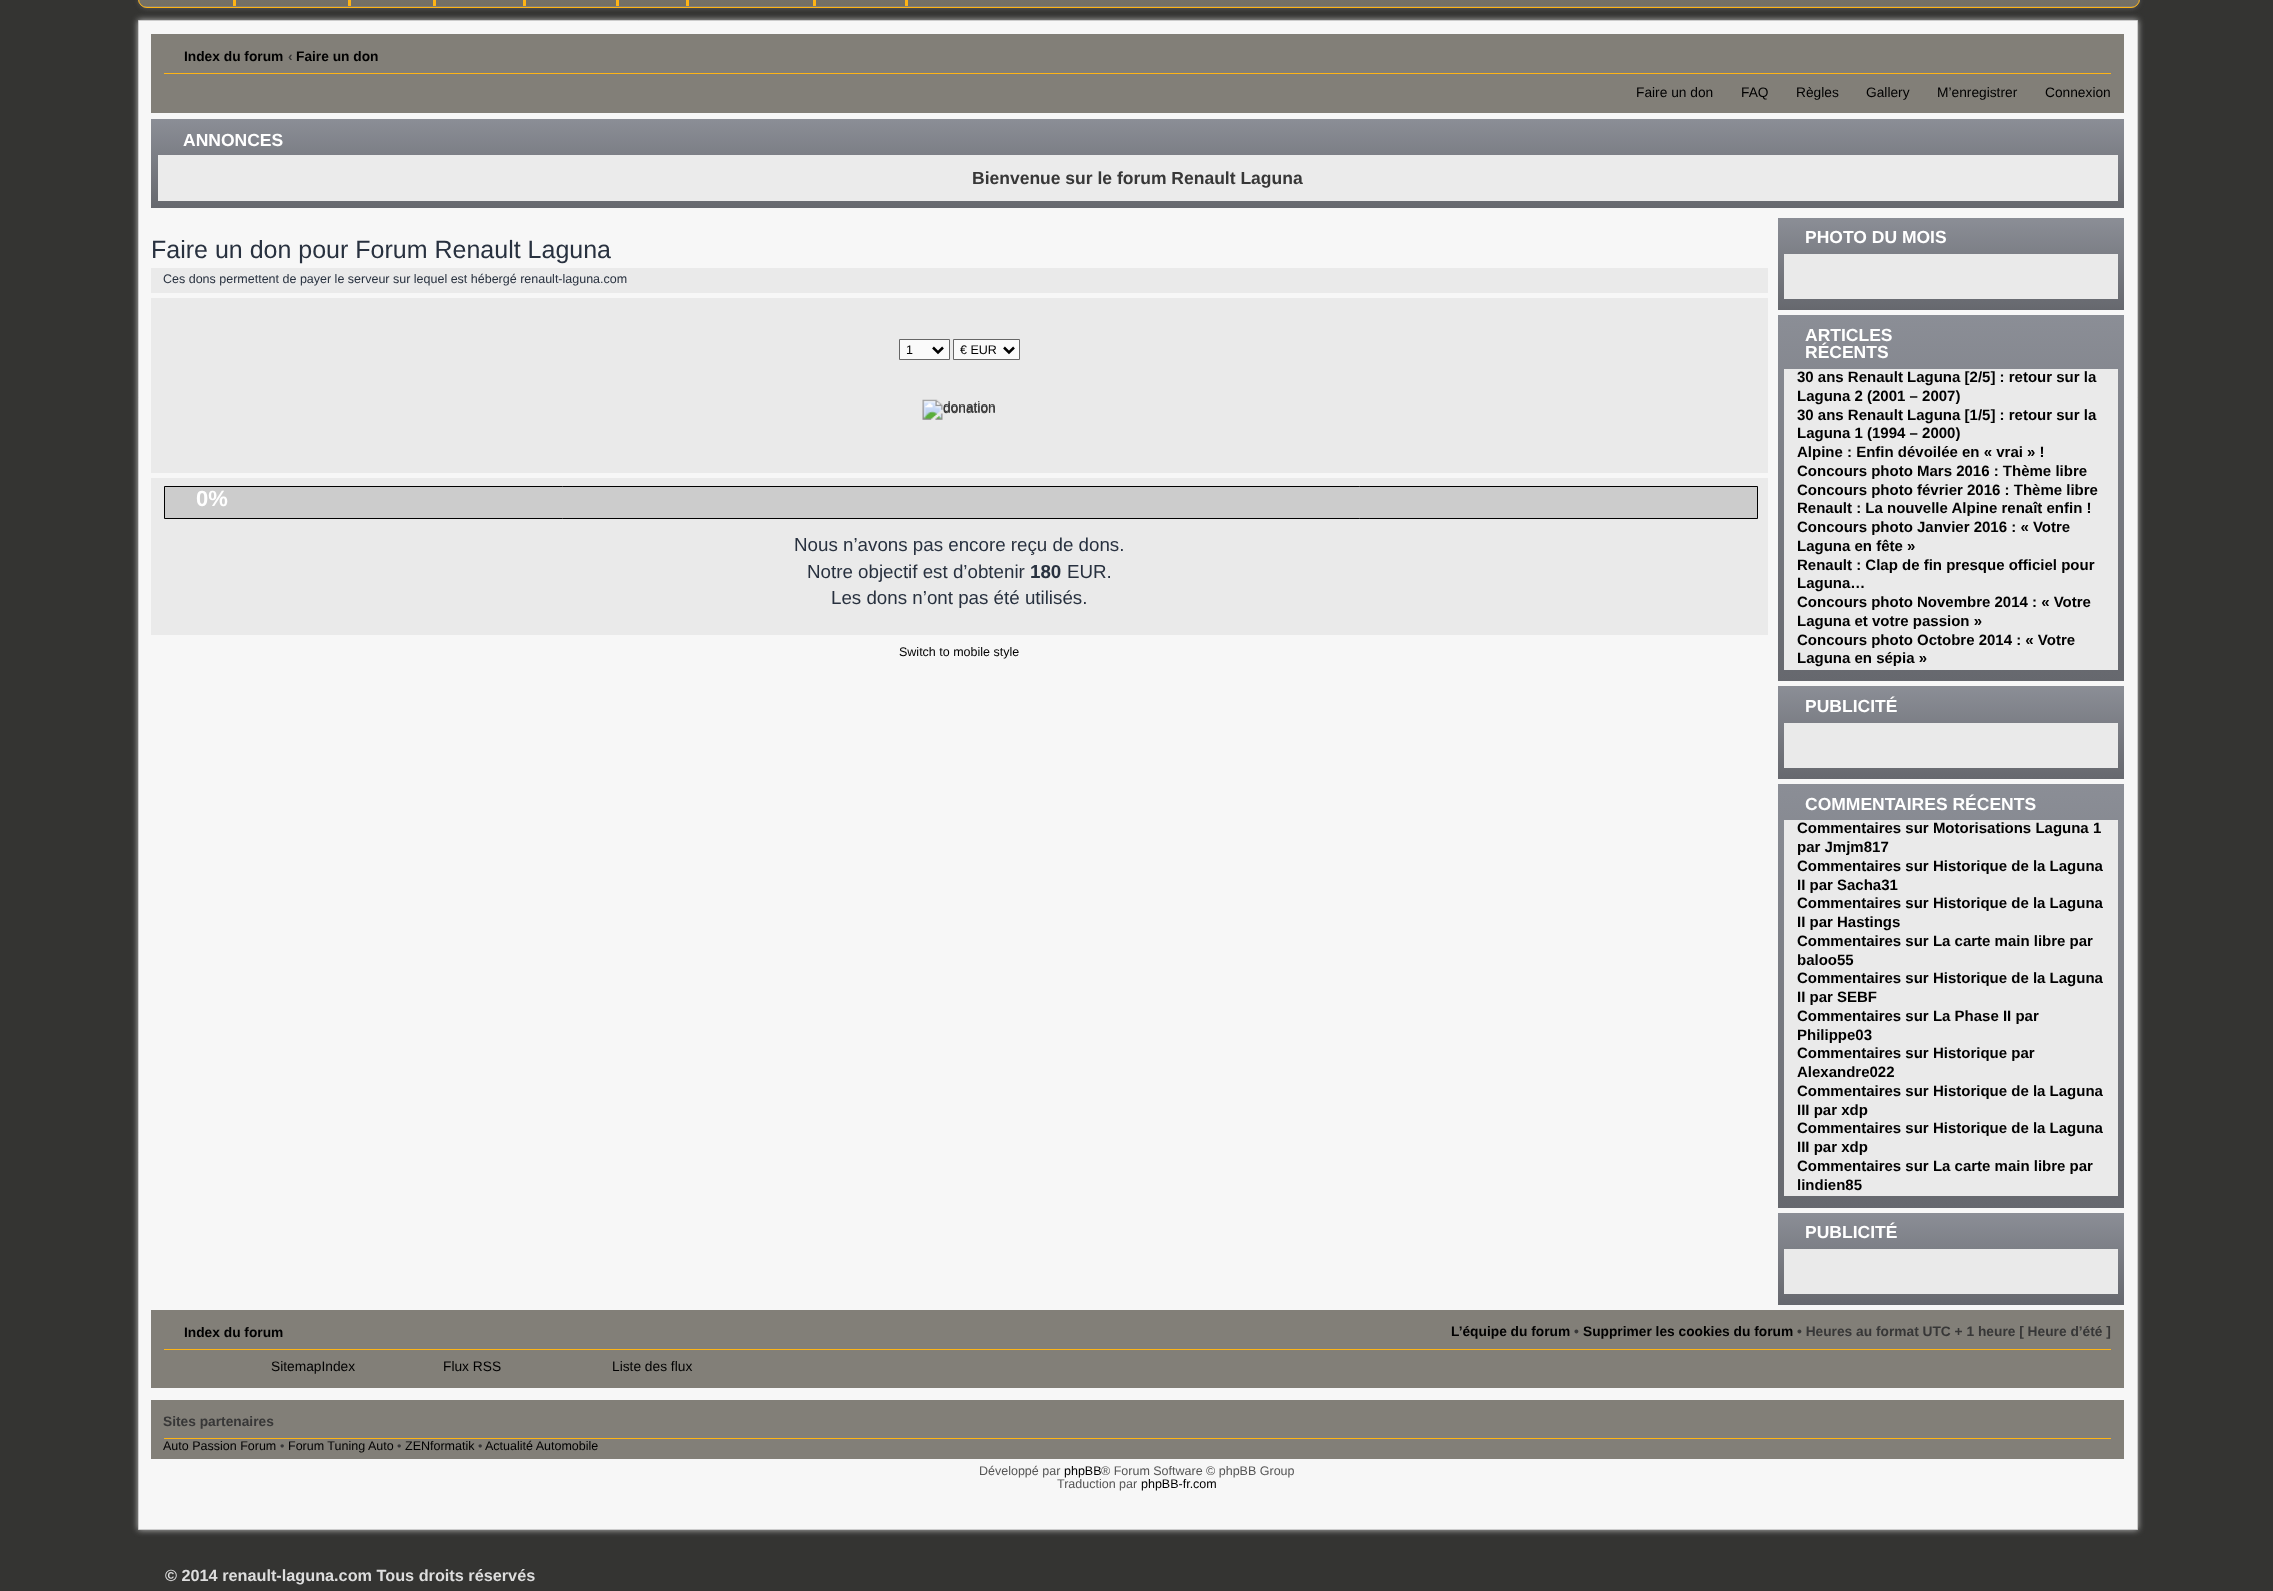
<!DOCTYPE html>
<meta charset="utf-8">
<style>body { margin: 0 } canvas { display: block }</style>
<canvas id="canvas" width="2273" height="1591"></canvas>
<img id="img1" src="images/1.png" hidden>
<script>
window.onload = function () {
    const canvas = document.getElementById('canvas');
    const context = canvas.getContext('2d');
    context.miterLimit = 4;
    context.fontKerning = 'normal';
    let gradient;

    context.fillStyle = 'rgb(52, 52, 50)';
    context.fillRect(0, 0, 2273, 1591);
    context.fillStyle = 'rgb(85, 85, 85)';
    context.filter = 'blur(2px)';
    context.beginPath();
    context.roundRect(138, -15, 2002, 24, 9);
    context.fill();
    context.filter = 'none';
    context.save();
    context.beginPath();
    context.roundRect(138, -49, 2002, 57, 9);
    context.clip();
    gradient = context.createLinearGradient(1139, -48, 1139, 6.3);
    gradient.addColorStop(0, 'rgb(130, 127, 120)');
    gradient.addColorStop(1, 'rgb(115, 111, 100)');
    context.fillStyle = gradient;
    context.fillRect(138, 0, 2002, 6);
    gradient = context.createLinearGradient(1139, 6.2, 1139, 60);
    gradient.addColorStop(0, 'rgb(130, 127, 120)');
    gradient.addColorStop(1, 'rgb(115, 111, 100)');
    context.fillStyle = gradient;
    context.fillRect(138, 6, 2002, 2);
    context.restore();
    context.beginPath();
    context.roundRect(138.5, -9.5, 2001, 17, 8.5);
    context.strokeStyle = 'rgb(254, 180, 21)';
    context.stroke();
    context.fillStyle = 'rgb(254, 180, 21)';
    context.fillRect(233, 0, 3, 6);
    context.fillRect(348, 0, 3, 6);
    context.fillRect(433, 0, 3, 6);
    context.fillRect(523, 0, 3, 6);
    context.fillRect(616, 0, 3, 6);
    context.fillRect(686, 0, 3, 6);
    context.fillRect(813, 0, 3, 6);
    context.fillRect(905, 0, 3, 6);
    context.fillStyle = 'rgb(187, 187, 187)';
    context.filter = 'blur(3px)';
    context.beginPath();
    context.rect(138, 20, 2000, 1510);
    context.fill();
    context.filter = 'none';
    context.fillStyle = 'rgb(247, 247, 247)';
    context.beginPath();
    context.rect(138.5, 20.5, 1999, 1509);
    context.fill();
    context.strokeStyle = 'rgb(204, 204, 204)';
    context.stroke();
    context.fillStyle = 'rgb(130, 127, 120)';
    context.fillRect(151, 34, 1973, 79);
    context.fillStyle = 'rgb(254, 180, 21)';
    context.fillRect(164, 73, 1947, 1);
    gradient = context.createLinearGradient(1138, 119, 1138, 208);
    gradient.addColorStop(0, 'rgb(139, 142, 150)');
    gradient.addColorStop(1, 'rgb(102, 104, 110)');
    context.fillStyle = gradient;
    context.fillRect(151, 119, 1973, 89);
    context.fillStyle = 'rgb(235, 235, 235)';
    context.fillRect(158, 155, 1960, 46);
    context.fillStyle = 'rgb(234, 234, 234)';
    context.fillRect(151, 268, 1617, 25);
    context.fillRect(151, 298, 1617, 175);
    context.fillStyle = 'rgb(250, 250, 250)';
    context.beginPath();
    context.rect(899.5, 339.5, 50, 20);
    context.fill();
    context.strokeStyle = 'rgb(102, 102, 102)';
    context.stroke();
    context.beginPath();
    context.moveTo(933, 347.5);
    context.lineTo(938, 352.5);
    context.lineTo(943, 347.5);
    context.strokeStyle = 'rgb(0, 0, 0)';
    context.lineWidth = 2.5;
    context.stroke();
    context.beginPath();
    context.rect(953.5, 339.5, 66, 20);
    context.fill();
    context.strokeStyle = 'rgb(102, 102, 102)';
    context.lineWidth = 1;
    context.stroke();
    context.beginPath();
    context.moveTo(1004, 347.5);
    context.lineTo(1009, 352.5);
    context.lineTo(1014, 347.5);
    context.strokeStyle = 'rgb(0, 0, 0)';
    context.lineWidth = 2.5;
    context.stroke();
    context.drawImage(document.getElementById('img1'), 922, 399, 73, 21);
    context.fillStyle = 'rgb(234, 234, 234)';
    context.fillRect(151, 478, 1617, 157);
    context.fillStyle = 'rgb(204, 204, 204)';
    context.beginPath();
    context.rect(164.5, 486.5, 1593, 32);
    context.fill();
    context.lineWidth = 1;
    context.stroke();
    gradient = context.createLinearGradient(1951, 218, 1951, 310);
    gradient.addColorStop(0, 'rgb(139, 142, 150)');
    gradient.addColorStop(1, 'rgb(102, 104, 110)');
    context.fillStyle = gradient;
    context.fillRect(1778, 218, 346, 92);
    context.fillStyle = 'rgb(234, 234, 234)';
    context.fillRect(1784, 254, 334, 45);
    gradient = context.createLinearGradient(1951, 315, 1951, 681);
    gradient.addColorStop(0, 'rgb(139, 142, 150)');
    gradient.addColorStop(1, 'rgb(102, 104, 110)');
    context.fillStyle = gradient;
    context.fillRect(1778, 315, 346, 366);
    context.fillStyle = 'rgb(234, 234, 234)';
    context.fillRect(1784, 369, 334, 301);
    gradient = context.createLinearGradient(1951, 686, 1951, 779);
    gradient.addColorStop(0, 'rgb(139, 142, 150)');
    gradient.addColorStop(1, 'rgb(102, 104, 110)');
    context.fillStyle = gradient;
    context.fillRect(1778, 686, 346, 93);
    context.fillStyle = 'rgb(234, 234, 234)';
    context.fillRect(1784, 723, 334, 45);
    gradient = context.createLinearGradient(1951, 784, 1951, 1208);
    gradient.addColorStop(0, 'rgb(139, 142, 150)');
    gradient.addColorStop(1, 'rgb(102, 104, 110)');
    context.fillStyle = gradient;
    context.fillRect(1778, 784, 346, 424);
    context.fillStyle = 'rgb(234, 234, 234)';
    context.fillRect(1784, 820, 334, 376);
    gradient = context.createLinearGradient(1951, 1213, 1951, 1305);
    gradient.addColorStop(0, 'rgb(139, 142, 150)');
    gradient.addColorStop(1, 'rgb(102, 104, 110)');
    context.fillStyle = gradient;
    context.fillRect(1778, 1213, 346, 92);
    context.fillStyle = 'rgb(234, 234, 234)';
    context.fillRect(1784, 1249, 334, 45);
    context.fillStyle = 'rgb(130, 127, 120)';
    context.fillRect(151, 1310, 1973, 78);
    context.fillStyle = 'rgb(254, 180, 21)';
    context.fillRect(164, 1349, 1947, 1);
    context.fillStyle = 'rgb(130, 127, 120)';
    context.fillRect(151, 1400, 1973, 59);
    context.fillStyle = 'rgb(254, 180, 21)';
    context.fillRect(164, 1438, 1947, 1);
    context.font = 'bold 13.75px Liberation Sans';
    context.fillStyle = 'rgb(0, 0, 0)';
    context.fillText('Index du forum', 184, 61);
    context.fillStyle = 'rgb(55, 55, 55)';
    context.fillText('‹', 288, 61);
    context.fillStyle = 'rgb(0, 0, 0)';
    context.fillText('Faire un don', 296, 61);
    context.font = '13.75px Liberation Sans';
    context.fillText('Faire un don', 1636, 97);
    context.fillText('FAQ', 1741, 97);
    context.fillText('Règles', 1796, 97);
    context.fillText('Gallery', 1866, 97);
    context.fillText('M’enregistrer', 1937, 97);
    context.fillText('Connexion', 2045, 97);
    context.font = 'bold 17.5px Liberation Sans';
    context.fillStyle = 'rgb(255, 255, 255)';
    context.fillText('ANNONCES', 183, 146);
    context.fillStyle = 'rgb(55, 55, 55)';
    context.fillText('Bienvenue sur le forum Renault Laguna', 972, 184);
    context.font = '25px Liberation Sans';
    context.fillStyle = 'rgb(40, 49, 63)';
    context.fillText('Faire un don pour Forum Renault Laguna', 151, 258);
    context.font = '12.5px Liberation Sans';
    context.fillText('Ces dons permettent de payer le serveur sur lequel est hébergé renault-laguna.com', 163, 283);
    context.fillStyle = 'rgb(0, 0, 0)';
    context.fillText('1', 906, 354);
    context.fillText('€ EUR', 960, 354);
    context.font = '13.75px Liberation Sans';
    context.fillStyle = 'rgb(55, 55, 55)';
    context.fillText('donation', 943, 413);
    context.font = 'bold 22px Liberation Sans';
    context.fillStyle = 'rgb(255, 255, 255)';
    context.fillText('0%', 196, 506);
    context.font = '18.75px Liberation Sans';
    context.fillStyle = 'rgb(40, 49, 63)';
    context.fillText('Nous n’avons pas encore reçu de dons.', 794, 551);
    context.fillText('Notre objectif est d’obtenir', 807, 578);
    context.font = 'bold 18.75px Liberation Sans';
    context.fillText('180', 1030, 578);
    context.font = '18.75px Liberation Sans';
    context.fillText('EUR.', 1067, 578);
    context.fillText('Les dons n’ont pas été utilisés.', 831, 604);
    context.font = '12.5px Liberation Sans';
    context.fillStyle = 'rgb(0, 0, 0)';
    context.fillText('Switch to mobile style', 899, 656);
    context.font = 'bold 17.5px Liberation Sans';
    context.fillStyle = 'rgb(255, 255, 255)';
    context.fillText('PHOTO DU MOIS', 1805, 243);
    context.fillText('ARTICLES', 1805, 341);
    context.fillText('RÉCENTS', 1805, 358);
    context.font = 'bold 15px Liberation Sans';
    context.fillStyle = 'rgb(0, 0, 0)';
    context.fillText('30 ans Renault Laguna [2/5] : retour sur la', 1797, 382);
    context.fillText('Laguna 2 (2001 – 2007)', 1797, 401);
    context.fillText('30 ans Renault Laguna [1/5] : retour sur la', 1797, 420);
    context.fillText('Laguna 1 (1994 – 2000)', 1797, 438);
    context.fillText('Alpine : Enfin dévoilée en « vrai » !', 1797, 457);
    context.fillText('Concours photo Mars 2016 : Thème libre', 1797, 476);
    context.fillText('Concours photo février 2016 : Thème libre', 1797, 495);
    context.fillText('Renault : La nouvelle Alpine renaît enfin !', 1797, 513);
    context.fillText('Concours photo Janvier 2016 : « Votre', 1797, 532);
    context.fillText('Laguna en fête »', 1797, 551);
    context.fillText('Renault : Clap de fin presque officiel pour', 1797, 570);
    context.fillText('Laguna…', 1797, 588);
    context.fillText('Concours photo Novembre 2014 : « Votre', 1797, 607);
    context.fillText('Laguna et votre passion »', 1797, 626);
    context.fillText('Concours photo Octobre 2014 : « Votre', 1797, 645);
    context.fillText('Laguna en sépia »', 1797, 663);
    context.font = 'bold 17.5px Liberation Sans';
    context.fillStyle = 'rgb(255, 255, 255)';
    context.fillText('PUBLICITÉ', 1805, 712);
    context.fillText('COMMENTAIRES RÉCENTS', 1805, 810);
    context.font = 'bold 15px Liberation Sans';
    context.fillStyle = 'rgb(0, 0, 0)';
    context.fillText('Commentaires sur Motorisations Laguna 1', 1797, 833);
    context.fillText('par Jmjm817', 1797, 852);
    context.fillText('Commentaires sur Historique de la Laguna', 1797, 871);
    context.fillText('II par Sacha31', 1797, 890);
    context.fillText('Commentaires sur Historique de la Laguna', 1797, 908);
    context.fillText('II par Hastings', 1797, 927);
    context.fillText('Commentaires sur La carte main libre par', 1797, 946);
    context.fillText('baloo55', 1797, 965);
    context.fillText('Commentaires sur Historique de la Laguna', 1797, 983);
    context.fillText('II par SEBF', 1797, 1002);
    context.fillText('Commentaires sur La Phase II par', 1797, 1021);
    context.fillText('Philippe03', 1797, 1040);
    context.fillText('Commentaires sur Historique par', 1797, 1058);
    context.fillText('Alexandre022', 1797, 1077);
    context.fillText('Commentaires sur Historique de la Laguna', 1797, 1096);
    context.fillText('III par xdp', 1797, 1115);
    context.fillText('Commentaires sur Historique de la Laguna', 1797, 1133);
    context.fillText('III par xdp', 1797, 1152);
    context.fillText('Commentaires sur La carte main libre par', 1797, 1171);
    context.fillText('lindien85', 1797, 1190);
    context.font = 'bold 17.5px Liberation Sans';
    context.fillStyle = 'rgb(255, 255, 255)';
    context.fillText('PUBLICITÉ', 1805, 1238);
    context.font = 'bold 13.75px Liberation Sans';
    context.fillStyle = 'rgb(0, 0, 0)';
    context.fillText('Index du forum', 184, 1337);
    context.fillText('L’équipe du forum', 1451, 1336);
    context.fillStyle = 'rgb(55, 55, 55)';
    context.fillText('•', 1574, 1336);
    context.fillStyle = 'rgb(0, 0, 0)';
    context.fillText('Supprimer les cookies du forum', 1583, 1336);
    context.fillStyle = 'rgb(55, 55, 55)';
    context.fillText('• Heures au format UTC + 1 heure [ Heure d’été ]', 1797, 1336);
    context.font = '13.75px Liberation Sans';
    context.fillStyle = 'rgb(0, 0, 0)';
    context.fillText('SitemapIndex', 271, 1371);
    context.fillText('Flux RSS', 443, 1371);
    context.fillText('Liste des flux', 612, 1371);
    context.font = 'bold 13.75px Liberation Sans';
    context.fillStyle = 'rgb(55, 55, 55)';
    context.fillText('Sites partenaires', 163, 1426);
    context.font = '12.5px Liberation Sans';
    context.fillStyle = 'rgb(0, 0, 0)';
    context.fillText('Auto Passion Forum', 163, 1450);
    context.fillStyle = 'rgb(55, 55, 55)';
    context.fillText('•', 280, 1450);
    context.fillStyle = 'rgb(0, 0, 0)';
    context.fillText('Forum Tuning Auto', 288, 1450);
    context.fillStyle = 'rgb(55, 55, 55)';
    context.fillText('•', 397, 1450);
    context.fillStyle = 'rgb(0, 0, 0)';
    context.fillText('ZENformatik', 405, 1450);
    context.fillStyle = 'rgb(55, 55, 55)';
    context.fillText('•', 478, 1450);
    context.fillStyle = 'rgb(0, 0, 0)';
    context.fillText('Actualité Automobile', 485, 1450);
    context.fillStyle = 'rgb(85, 85, 85)';
    context.fillText('Développé par', 979, 1475);
    context.fillStyle = 'rgb(0, 0, 0)';
    context.fillText('phpBB', 1064, 1475);
    context.fillStyle = 'rgb(85, 85, 85)';
    context.fillText('® Forum Software © phpBB Group', 1101, 1475);
    context.fillText('Traduction par', 1057, 1488);
    context.fillStyle = 'rgb(0, 0, 0)';
    context.fillText('phpBB-fr.com', 1141, 1488);
    context.font = 'bold 16.25px Liberation Sans';
    context.fillStyle = 'rgb(221, 221, 221)';
    context.fillText('© 2014 renault-laguna.com Tous droits réservés', 165, 1581);
};
</script>
